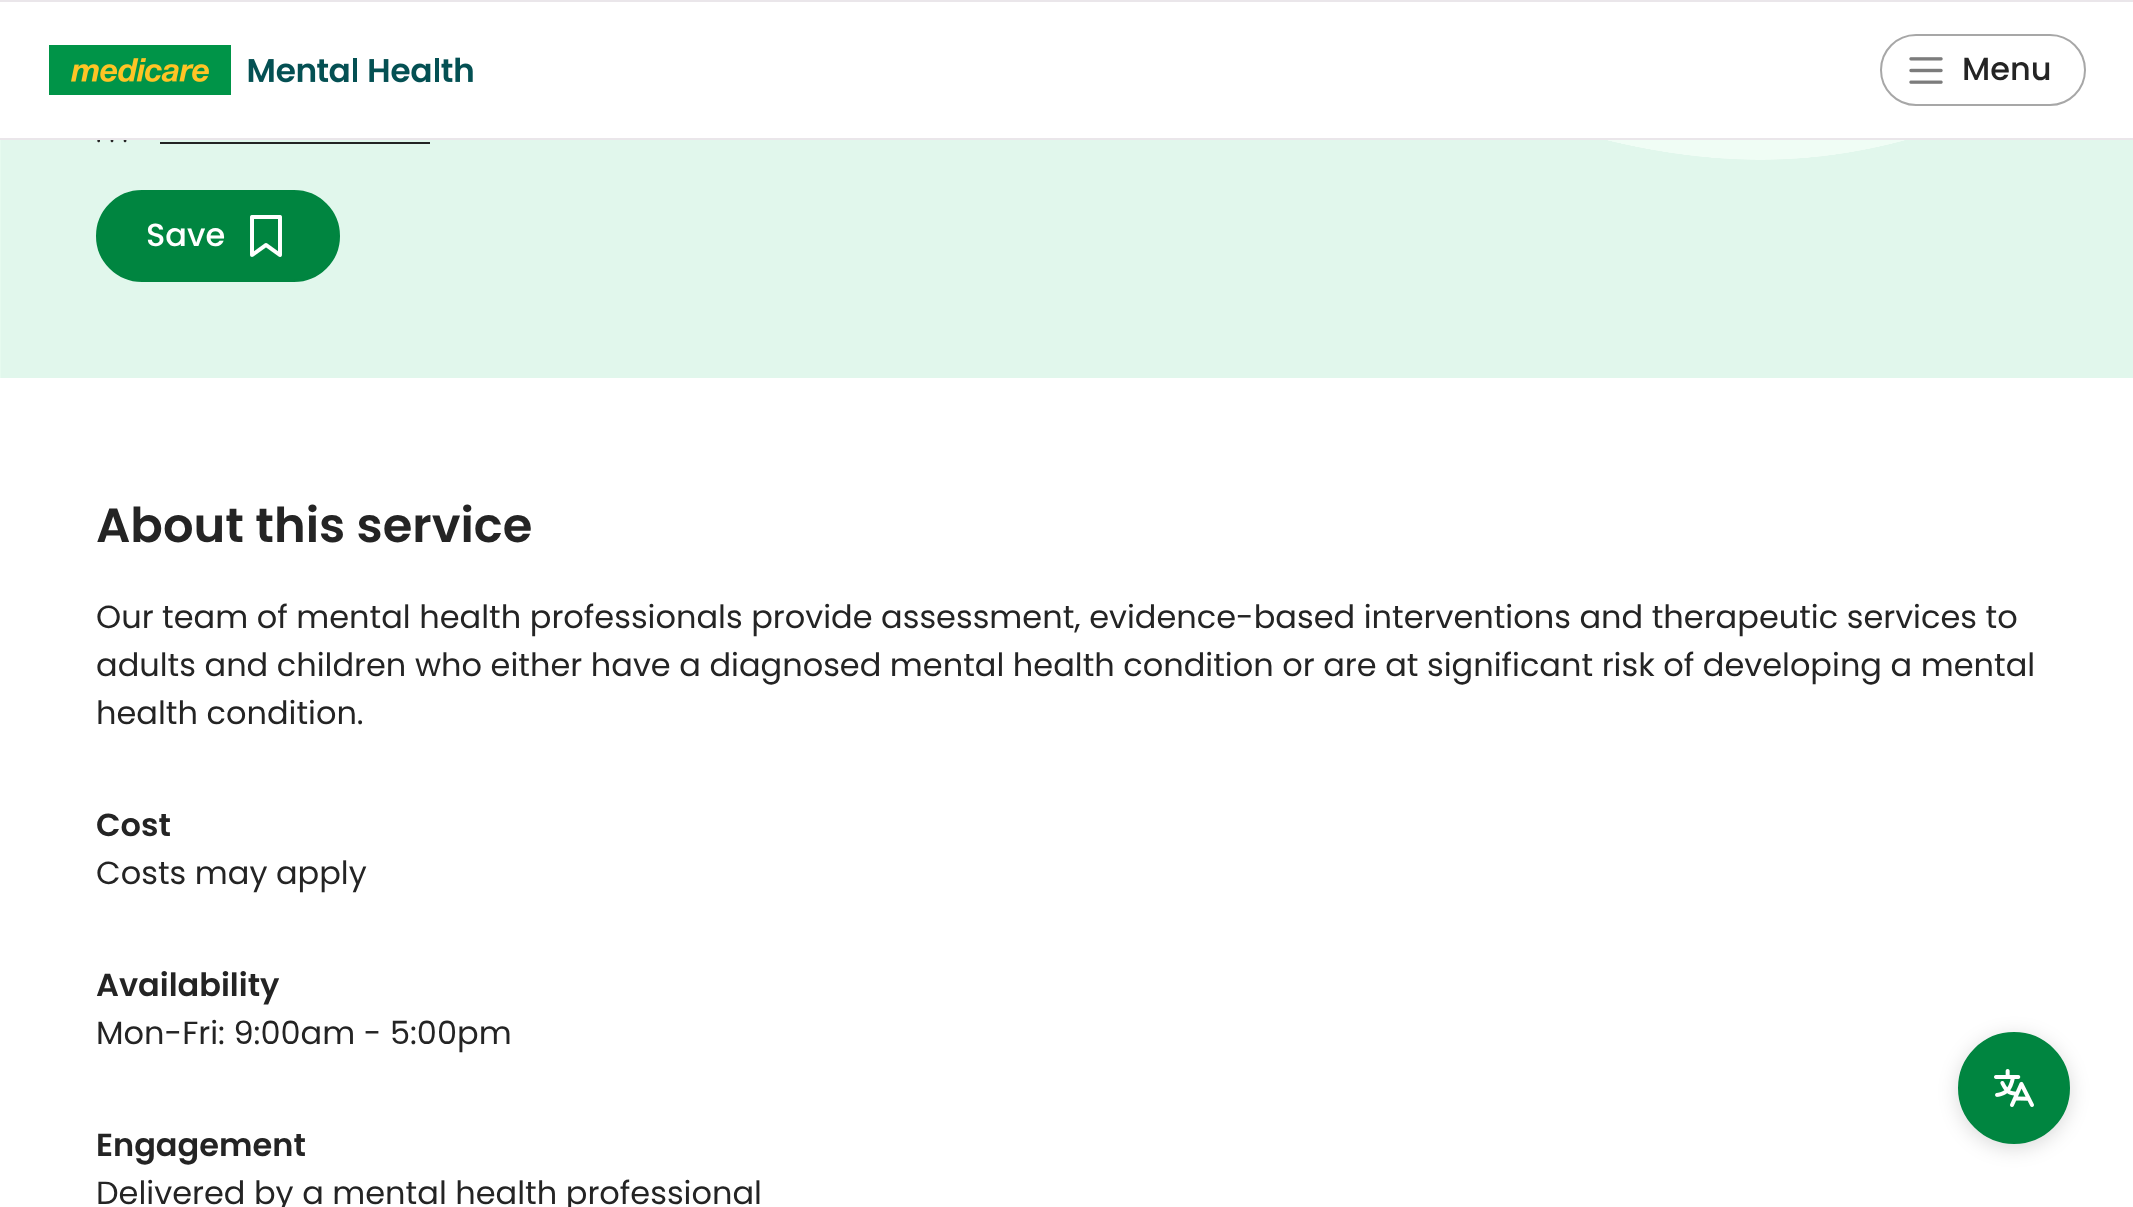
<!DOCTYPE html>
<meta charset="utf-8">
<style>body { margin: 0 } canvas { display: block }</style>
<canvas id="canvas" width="2133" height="1207"></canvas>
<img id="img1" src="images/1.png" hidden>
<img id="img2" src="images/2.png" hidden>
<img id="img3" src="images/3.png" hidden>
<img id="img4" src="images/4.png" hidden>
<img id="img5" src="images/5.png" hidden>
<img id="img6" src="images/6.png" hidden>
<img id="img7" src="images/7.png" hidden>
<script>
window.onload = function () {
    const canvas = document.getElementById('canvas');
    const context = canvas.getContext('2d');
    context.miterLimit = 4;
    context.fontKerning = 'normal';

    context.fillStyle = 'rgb(255, 255, 255)';
    context.fillRect(0, 0, 2133, 1207);
    context.fillStyle = 'rgb(234, 230, 234)';
    context.fillRect(0, 0, 2133, 2);
    context.fillRect(0, 138, 2133, 2);
    context.drawImage(document.getElementById('img1'), 49, 45, 182, 50);
    context.drawImage(document.getElementById('img2'), 248, 57, 225, 26);
    context.beginPath();
    context.roundRect(1881, 35, 204, 70, 35);
    context.strokeStyle = 'rgb(167, 167, 167)';
    context.lineWidth = 2;
    context.stroke();
    context.drawImage(document.getElementById('img3'), 1909, 57, 34, 27);
    context.fillStyle = 'rgba(0, 0, 0, 0.15)';
    context.filter = 'blur(10px)';
    context.beginPath();
    context.roundRect(1958, 1036, 112, 112, 56);
    context.fill();
    context.filter = 'none';
    context.fillStyle = 'rgb(0, 133, 64)';
    context.beginPath();
    context.arc(2014, 1088, 55, 0, 2 * Math.PI);
    context.fill();
    context.strokeStyle = 'rgb(0, 133, 64)';
    context.stroke();
    context.drawImage(document.getElementById('img4'), 1994, 1069, 40, 38);
    context.fillStyle = 'rgb(240, 253, 245)';
    context.fillRect(0, 140, 1, 238);
    context.drawImage(document.getElementById('img5'), 0, 140, 2133, 238);
    context.drawImage(document.getElementById('img6'), 97, 140, 30, 3);
    context.fillStyle = 'rgb(36, 36, 36)';
    context.fillRect(160, 142, 270, 2);
    context.fillStyle = 'rgb(0, 133, 64)';
    context.beginPath();
    context.roundRect(97, 191, 242, 90, 45);
    context.fill();
    context.stroke();
    context.drawImage(document.getElementById('img7'), 250, 215, 32, 42);
    context.font = '500 32px Poppins';
    context.fillStyle = 'rgb(36, 36, 36)';
    context.fillText('Menu', 1962, 80);
    context.fillStyle = 'rgb(255, 255, 255)';
    context.fillText('Save', 146, 246);
    context.font = '600 48px Poppins';
    context.fillStyle = 'rgb(36, 36, 36)';
    context.fillText('About this service', 96, 542);
    context.font = '32px Poppins';
    context.fillText('Our team of mental health professionals provide assessment, evidence-based interventions and therapeutic services to', 96, 628);
    context.fillText('adults and children who either have a diagnosed mental health condition or are at significant risk of developing a mental', 96, 676);
    context.fillText('health condition.', 96, 724);
    context.font = '600 32px Poppins';
    context.fillText('Cost', 96, 836);
    context.font = '32px Poppins';
    context.fillText('Costs may apply', 96, 884);
    context.font = '600 32px Poppins';
    context.fillText('Availability', 96, 996);
    context.font = '32px Poppins';
    context.fillText('Mon-Fri: 9:00am - 5:00pm', 96, 1044);
    context.font = '600 32px Poppins';
    context.fillText('Engagement', 96, 1156);
    context.font = '32px Poppins';
    context.fillText('Delivered by a mental health professional', 96, 1204);
};
</script>
